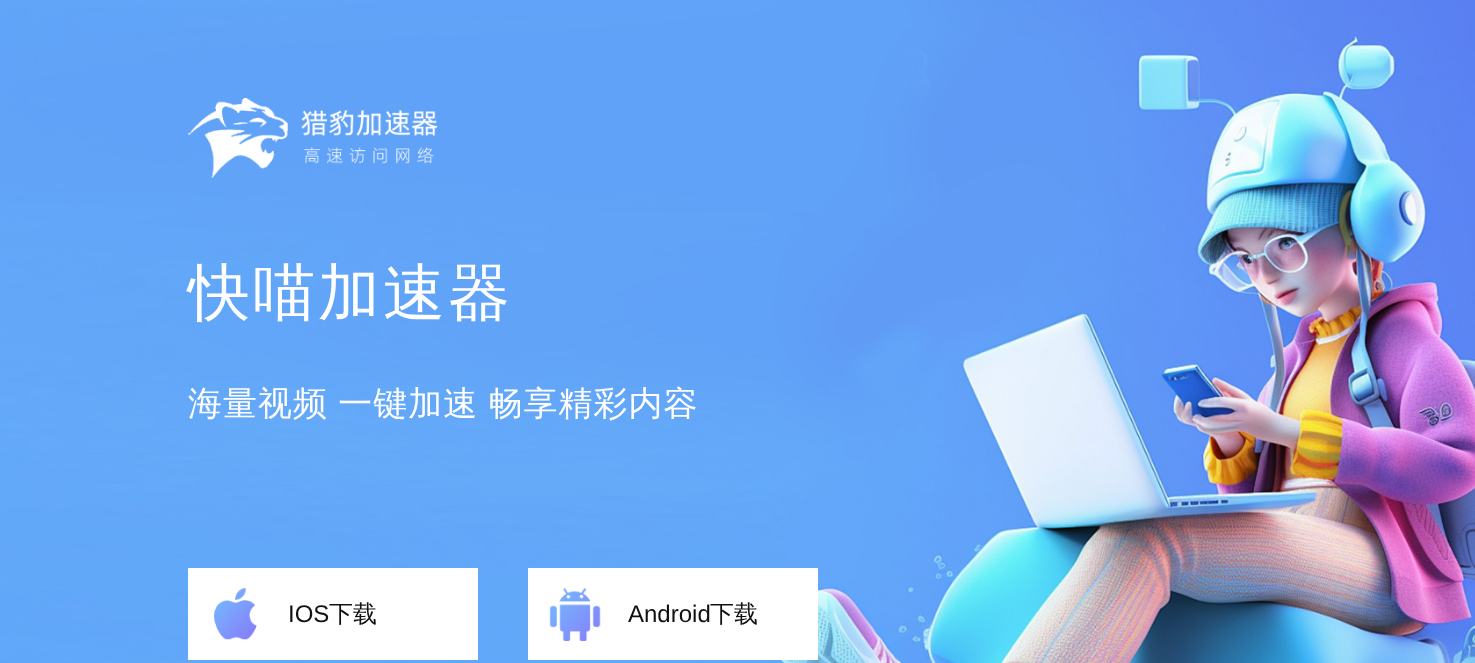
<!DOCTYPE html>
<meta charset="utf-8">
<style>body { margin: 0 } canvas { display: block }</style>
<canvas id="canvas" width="1475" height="663"></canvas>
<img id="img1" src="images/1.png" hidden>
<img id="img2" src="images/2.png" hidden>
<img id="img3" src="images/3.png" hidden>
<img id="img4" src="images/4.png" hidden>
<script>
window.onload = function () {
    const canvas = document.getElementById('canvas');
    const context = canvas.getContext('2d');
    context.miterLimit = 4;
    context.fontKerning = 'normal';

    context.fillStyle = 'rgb(255, 255, 255)';
    context.fillRect(0, 0, 1475, 663);
    context.drawImage(document.getElementById('img1'), 0, 0, 1475, 663);
    context.drawImage(document.getElementById('img2'), 188, 98, 250, 80);
    context.fillRect(188, 568, 290, 92);
    context.drawImage(document.getElementById('img3'), 214, 587, 43, 53);
    context.fillRect(528, 568, 290, 92);
    context.drawImage(document.getElementById('img4'), 549, 588, 52, 53);
    context.letterSpacing = '3px';
    context.font = '500 62px WenQuanYi Zen Hei';
    context.fillText('快喵加速器', 188, 314);
    context.letterSpacing = '1px';
    context.wordSpacing = '-1px';
    context.font = '500 34px WenQuanYi Zen Hei';
    context.fillText('海量视频 一键加速 畅享精彩内容', 188, 415);
    context.letterSpacing = '0px';
    context.wordSpacing = '0px';
    context.font = '24px Liberation Sans';
    context.fillStyle = 'rgb(17, 17, 17)';
    context.fillText('IOS', 288, 622);
    context.font = '500 24px WenQuanYi Zen Hei';
    context.fillText('下载', 329, 622);
    context.font = '24px Liberation Sans';
    context.fillText('Android', 628, 622);
    context.font = '500 24px WenQuanYi Zen Hei';
    context.fillText('下载', 710, 622);
};
</script>
